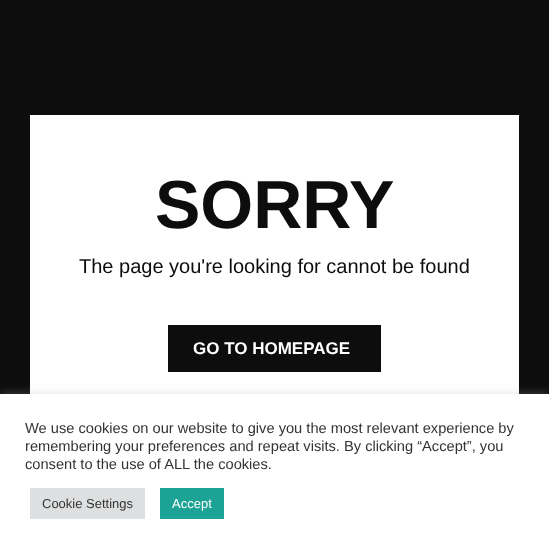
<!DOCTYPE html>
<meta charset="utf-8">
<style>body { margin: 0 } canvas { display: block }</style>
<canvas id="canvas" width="549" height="549"></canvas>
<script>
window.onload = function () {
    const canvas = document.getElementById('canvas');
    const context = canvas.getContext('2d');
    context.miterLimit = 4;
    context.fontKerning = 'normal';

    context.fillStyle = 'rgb(13, 13, 13)';
    context.fillRect(0, 0, 549, 549);
    context.fillStyle = 'rgb(255, 255, 255)';
    context.fillRect(30, 115, 489, 279);
    context.fillStyle = 'rgb(13, 13, 13)';
    context.fillRect(168, 325, 213, 47);
    context.fillStyle = 'rgba(172, 171, 171, 0.3)';
    context.filter = 'blur(5px)';
    context.beginPath();
    context.rect(0, 393, 549, 155);
    context.fill();
    context.filter = 'none';
    context.fillStyle = 'rgb(255, 255, 255)';
    context.fillRect(0, 394, 549, 155);
    context.fillStyle = 'rgb(222, 223, 224)';
    context.fillRect(30, 488, 115, 31);
    context.fillStyle = 'rgb(29, 163, 149)';
    context.fillRect(160, 488, 64, 31);
    context.font = 'bold 68px Liberation Sans';
    context.fillStyle = 'rgb(13, 13, 13)';
    context.fillText('SORRY', 155, 228);
    context.font = '20px Liberation Sans';
    context.fillText('The page you\'re looking for cannot be found', 79, 273);
    context.font = 'bold 17px Liberation Sans';
    context.fillStyle = 'rgb(255, 255, 255)';
    context.fillText('GO TO HOMEPAGE', 193, 354);
    context.font = '14.65px Liberation Sans';
    context.fillStyle = 'rgb(51, 51, 51)';
    context.fillText('We use cookies on our website to give you the most relevant experience by', 25, 433);
    context.fillText('remembering your preferences and repeat visits. By clicking “Accept”, you', 25, 451);
    context.fillText('consent to the use of ALL the cookies.', 25, 469);
    context.font = '13px Liberation Sans';
    context.fillText('Cookie Settings', 42, 508);
    context.fillStyle = 'rgb(255, 255, 255)';
    context.fillText('Accept', 172, 508);
};
</script>
